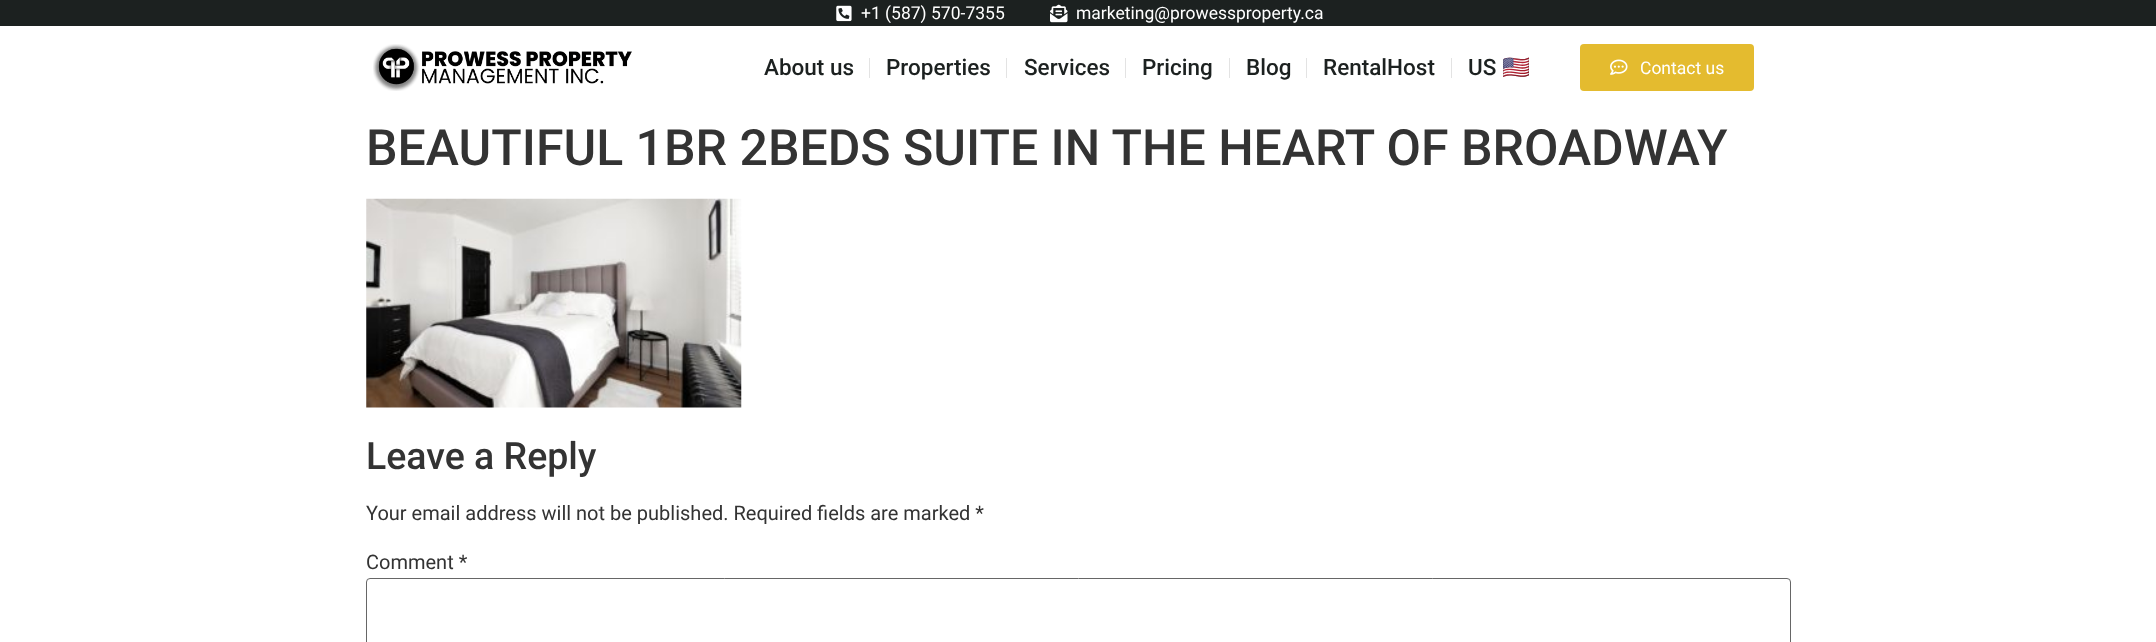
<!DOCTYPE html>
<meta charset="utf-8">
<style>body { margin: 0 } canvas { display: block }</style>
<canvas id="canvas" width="2156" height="642"></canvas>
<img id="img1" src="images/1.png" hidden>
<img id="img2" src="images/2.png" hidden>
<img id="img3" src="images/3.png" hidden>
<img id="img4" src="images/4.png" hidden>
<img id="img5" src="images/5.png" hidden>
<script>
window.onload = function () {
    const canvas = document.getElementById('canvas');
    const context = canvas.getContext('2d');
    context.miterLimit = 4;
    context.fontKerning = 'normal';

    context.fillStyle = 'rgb(255, 255, 255)';
    context.fillRect(0, 0, 2156, 642);
    context.fillStyle = 'rgb(28, 33, 32)';
    context.fillRect(0, 0, 2156, 26);
    context.drawImage(document.getElementById('img1'), 836, 5, 16, 17);
    context.drawImage(document.getElementById('img2'), 1050, 4, 18, 19);
    context.drawImage(document.getElementById('img3'), 373, 44, 259, 47);
    context.fillStyle = 'rgb(227, 227, 227)';
    context.fillRect(869, 58, 1, 20);
    context.fillRect(1006, 58, 1, 20);
    context.fillRect(1125, 58, 1, 20);
    context.fillRect(1229, 58, 1, 20);
    context.fillRect(1306, 58, 1, 20);
    context.fillRect(1451, 58, 1, 20);
    context.fillStyle = 'rgb(228, 187, 47)';
    context.beginPath();
    context.roundRect(1580, 44, 174, 47, 4);
    context.fill();
    context.drawImage(document.getElementById('img4'), 1610, 59, 18, 16);
    context.drawImage(document.getElementById('img5'), 366, 198, 376, 210);
    context.beginPath();
    context.roundRect(366.5, 578.5, 1424, 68, 3.5);
    context.strokeStyle = 'rgb(102, 102, 102)';
    context.stroke();
    context.font = '17.5px Roboto';
    context.fillStyle = 'rgb(255, 255, 255)';
    context.fillText('+1 (587) 570-7355', 861, 19);
    context.fillText('marketing@prowessproperty.ca', 1076, 19);
    context.font = '500 22.5px Roboto';
    context.fillStyle = 'rgb(28, 33, 32)';
    context.fillText('About us', 764, 75);
    context.fillText('Properties', 886, 75);
    context.fillText('Services', 1024, 75);
    context.fillText('Pricing', 1142, 75);
    context.fillText('Blog', 1246, 75);
    context.fillText('RentalHost', 1323, 75);
    context.fillText('US', 1468, 75);
    context.font = '22.5px Noto Color Emoji';
    context.fillText('🇺🇸', 1502, 75);
    context.font = '17.5px Roboto';
    context.fillStyle = 'rgb(255, 255, 255)';
    context.fillText('Contact us', 1640, 74);
    context.font = '500 50px Roboto';
    context.fillStyle = 'rgb(51, 51, 51)';
    context.fillText('BEAUTIFUL 1BR 2BEDS SUITE IN THE HEART OF BROADWAY', 366, 165);
    context.font = '500 37.5px Roboto';
    context.fillText('Leave a Reply', 366, 469);
    context.font = '20px Roboto';
    context.fillText('Your email address will not be published. Required fields are marked *', 366, 520);
    context.fillText('Comment *', 366, 569);
};
</script>
